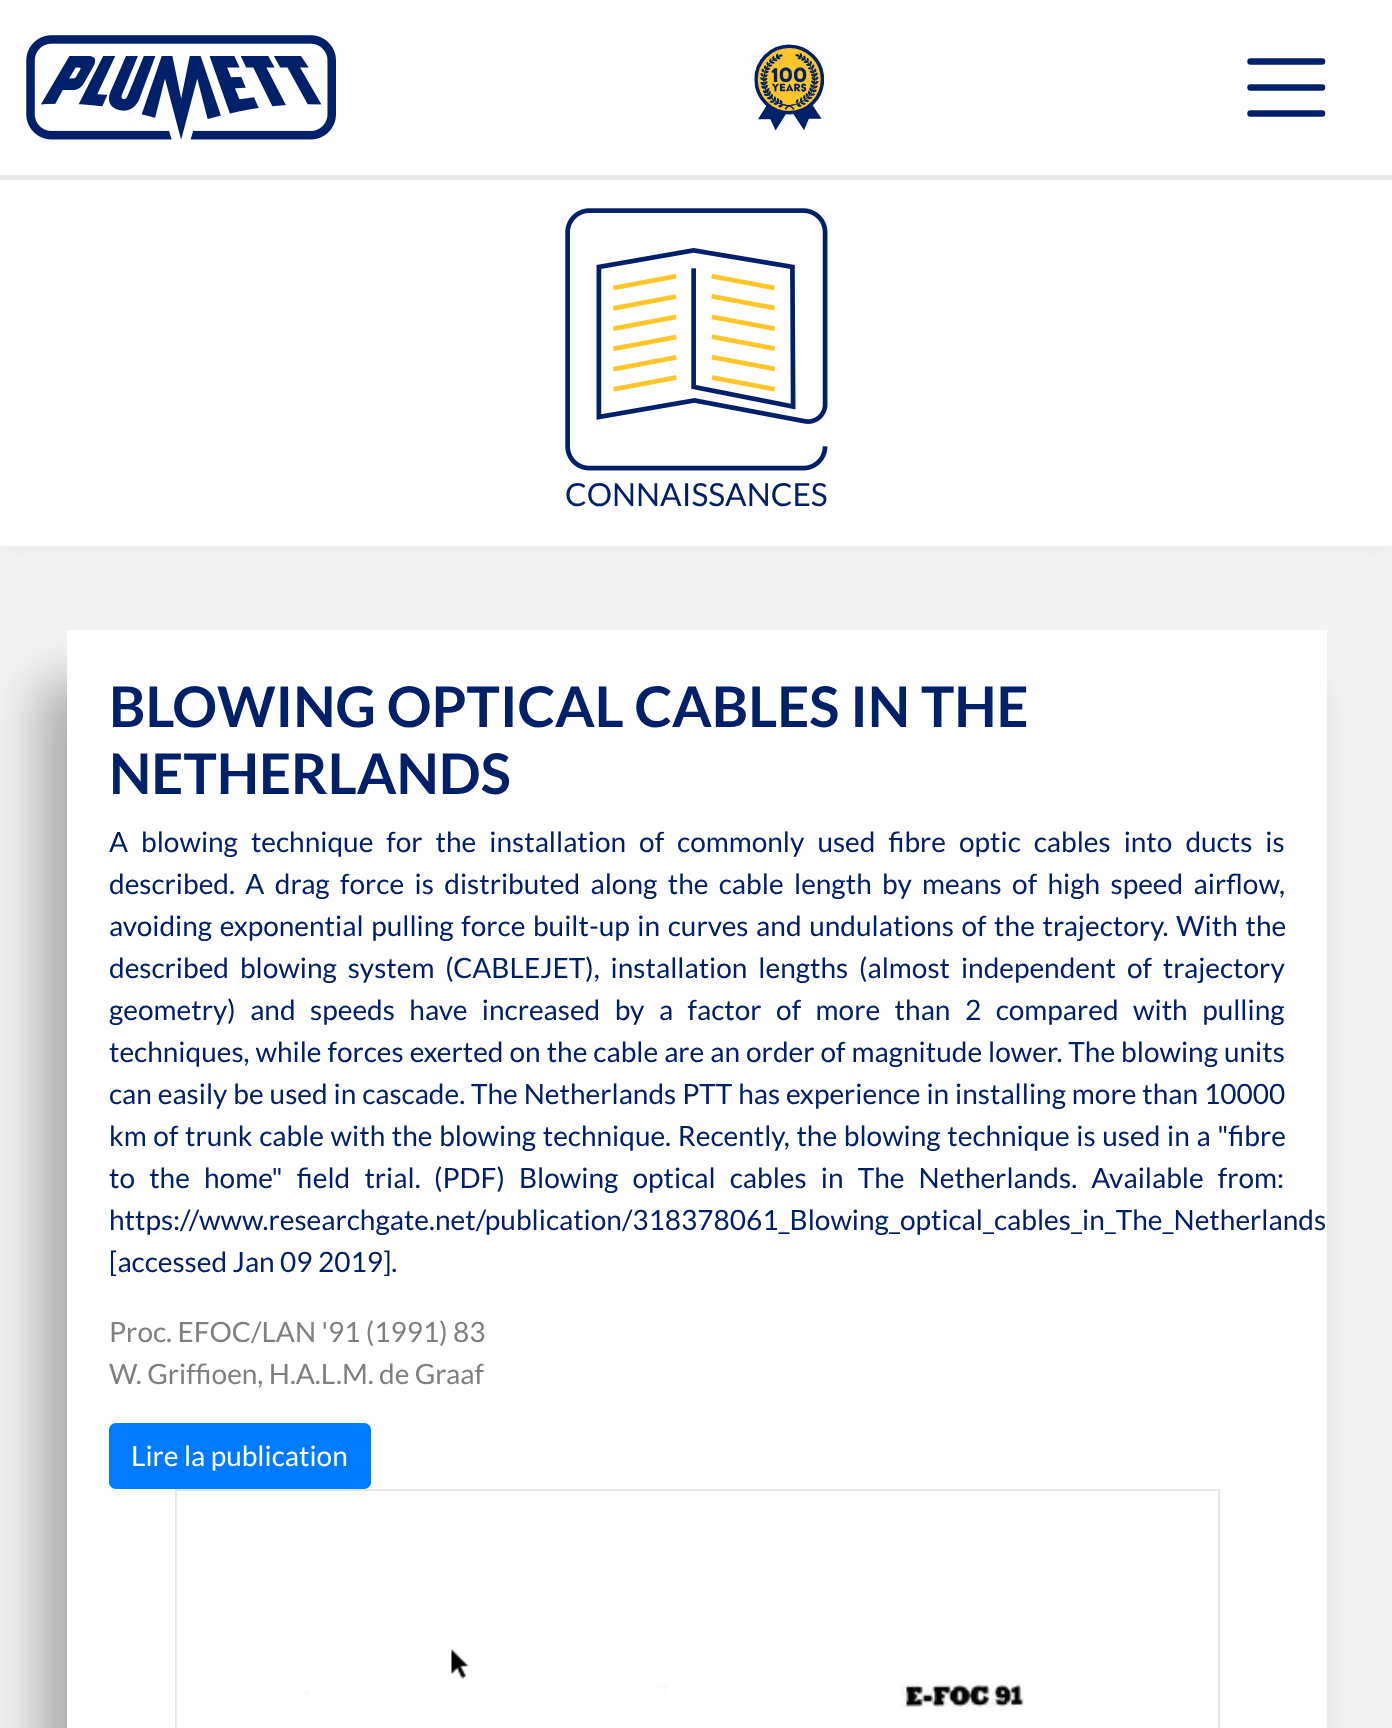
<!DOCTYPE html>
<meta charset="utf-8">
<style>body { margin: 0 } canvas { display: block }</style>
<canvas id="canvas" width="1392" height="1728"></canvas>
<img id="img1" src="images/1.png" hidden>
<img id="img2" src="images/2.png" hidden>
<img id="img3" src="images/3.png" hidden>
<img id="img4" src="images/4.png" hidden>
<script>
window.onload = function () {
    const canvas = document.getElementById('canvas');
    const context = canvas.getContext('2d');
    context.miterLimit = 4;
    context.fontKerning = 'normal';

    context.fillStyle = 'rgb(243, 243, 244)';
    context.fillRect(0, 0, 1392, 1728);
    context.fillStyle = 'rgba(0, 0, 0, 0.05)';
    context.filter = 'blur(14px)';
    context.beginPath();
    context.rect(0, 180, 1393, 366);
    context.fill();
    context.filter = 'none';
    context.fillStyle = 'rgb(255, 255, 255)';
    context.fillRect(0, 0, 1392, 175);
    context.fillStyle = 'rgb(231, 232, 233)';
    context.fillRect(0, 175, 1392, 5);
    context.drawImage(document.getElementById('img1'), 26, 35, 310, 105);
    context.drawImage(document.getElementById('img2'), 754, 44, 70, 87);
    context.beginPath();
    context.moveTo(1250.5, 61.5);
    context.lineTo(1322, 61.5);
    context.moveTo(1250.5, 87.5);
    context.lineTo(1322, 87.5);
    context.moveTo(1250.5, 113.5);
    context.lineTo(1322, 113.5);
    context.strokeStyle = 'rgb(0, 33, 105)';
    context.lineWidth = 6.5;
    context.lineCap = 'round';
    context.stroke();
    context.fillStyle = 'rgb(255, 255, 255)';
    context.fillRect(0, 180, 1392, 366);
    context.drawImage(document.getElementById('img3'), 565, 208, 263, 263);
    context.fillStyle = 'rgba(0, 0, 0, 0.3)';
    context.filter = 'blur(26px)';
    context.beginPath();
    context.rect(40, 683, 1260, 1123);
    context.fill();
    context.filter = 'none';
    context.fillStyle = 'rgb(255, 255, 255)';
    context.fillRect(67, 630, 1260, 1098);
    context.fillStyle = 'rgb(0, 123, 255)';
    context.beginPath();
    context.roundRect(110, 1424, 260, 64, 6);
    context.fill();
    context.strokeStyle = 'rgb(0, 123, 255)';
    context.lineWidth = 2;
    context.stroke();
    context.strokeStyle = 'rgb(230, 230, 230)';
    context.strokeRect(176, 1490, 1043, 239);
    context.drawImage(document.getElementById('img4'), 176, 1491, 848, 237);
    context.font = '31.75px Lato';
    context.fillStyle = 'rgb(0, 33, 105)';
    context.fillText('CONNAISSANCES', 565, 506);
    context.font = 'bold 56px Lato';
    context.fillText('BLOWING OPTICAL CABLES IN THE', 109, 727);
    context.fillText('NETHERLANDS', 109, 794);
    context.wordSpacing = '7.6px';
    context.font = '28px Lato';
    context.fillText('A blowing technique for the installation of commonly used fibre optic cables into ducts is', 109, 852);
    context.wordSpacing = '5px';
    context.fillText('described. A drag force is distributed along the cable length by means of high speed airflow,', 109, 894);
    context.wordSpacing = '2.25px';
    context.fillText('avoiding exponential pulling force built-up in curves and undulations of the trajectory. With the', 109, 936);
    context.wordSpacing = '5.5px';
    context.fillText('described blowing system (CABLEJET), installation lengths (almost independent of trajectory', 109, 978);
    context.wordSpacing = '9.1px';
    context.fillText('geometry) and speeds have increased by a factor of more than 2 compared with pulling', 109, 1020);
    context.wordSpacing = '0.6px';
    context.fillText('techniques, while forces exerted on the cable are an order of magnitude lower. The blowing units', 109, 1062);
    context.wordSpacing = '0.5px';
    context.fillText('can easily be used in cascade. The Netherlands PTT has experience in installing more than 10000', 109, 1104);
    context.wordSpacing = '1.25px';
    context.fillText('km of trunk cable with the blowing technique. Recently, the blowing technique is used in a "fibre', 109, 1146);
    context.wordSpacing = '8.75px';
    context.fillText('to the home" field trial.', 109, 1188);
    context.fillText('(PDF) Blowing optical cables in The Netherlands. Available from:', 434, 1188);
    context.wordSpacing = '0px';
    context.fillText('https://www.researchgate.net/publication/318378061_Blowing_optical_cables_in_The_Netherlands', 109, 1230);
    context.fillText('[accessed Jan 09 2019].', 109, 1272);
    context.fillStyle = 'rgb(128, 128, 128)';
    context.fillText('Proc. EFOC/LAN \'91 (1991) 83', 109, 1342);
    context.fillText('W. Griffioen, H.A.L.M. de Graaf', 109, 1384);
    context.fillStyle = 'rgb(255, 255, 255)';
    context.fillText('Lire la publication', 131, 1466);
};
</script>
